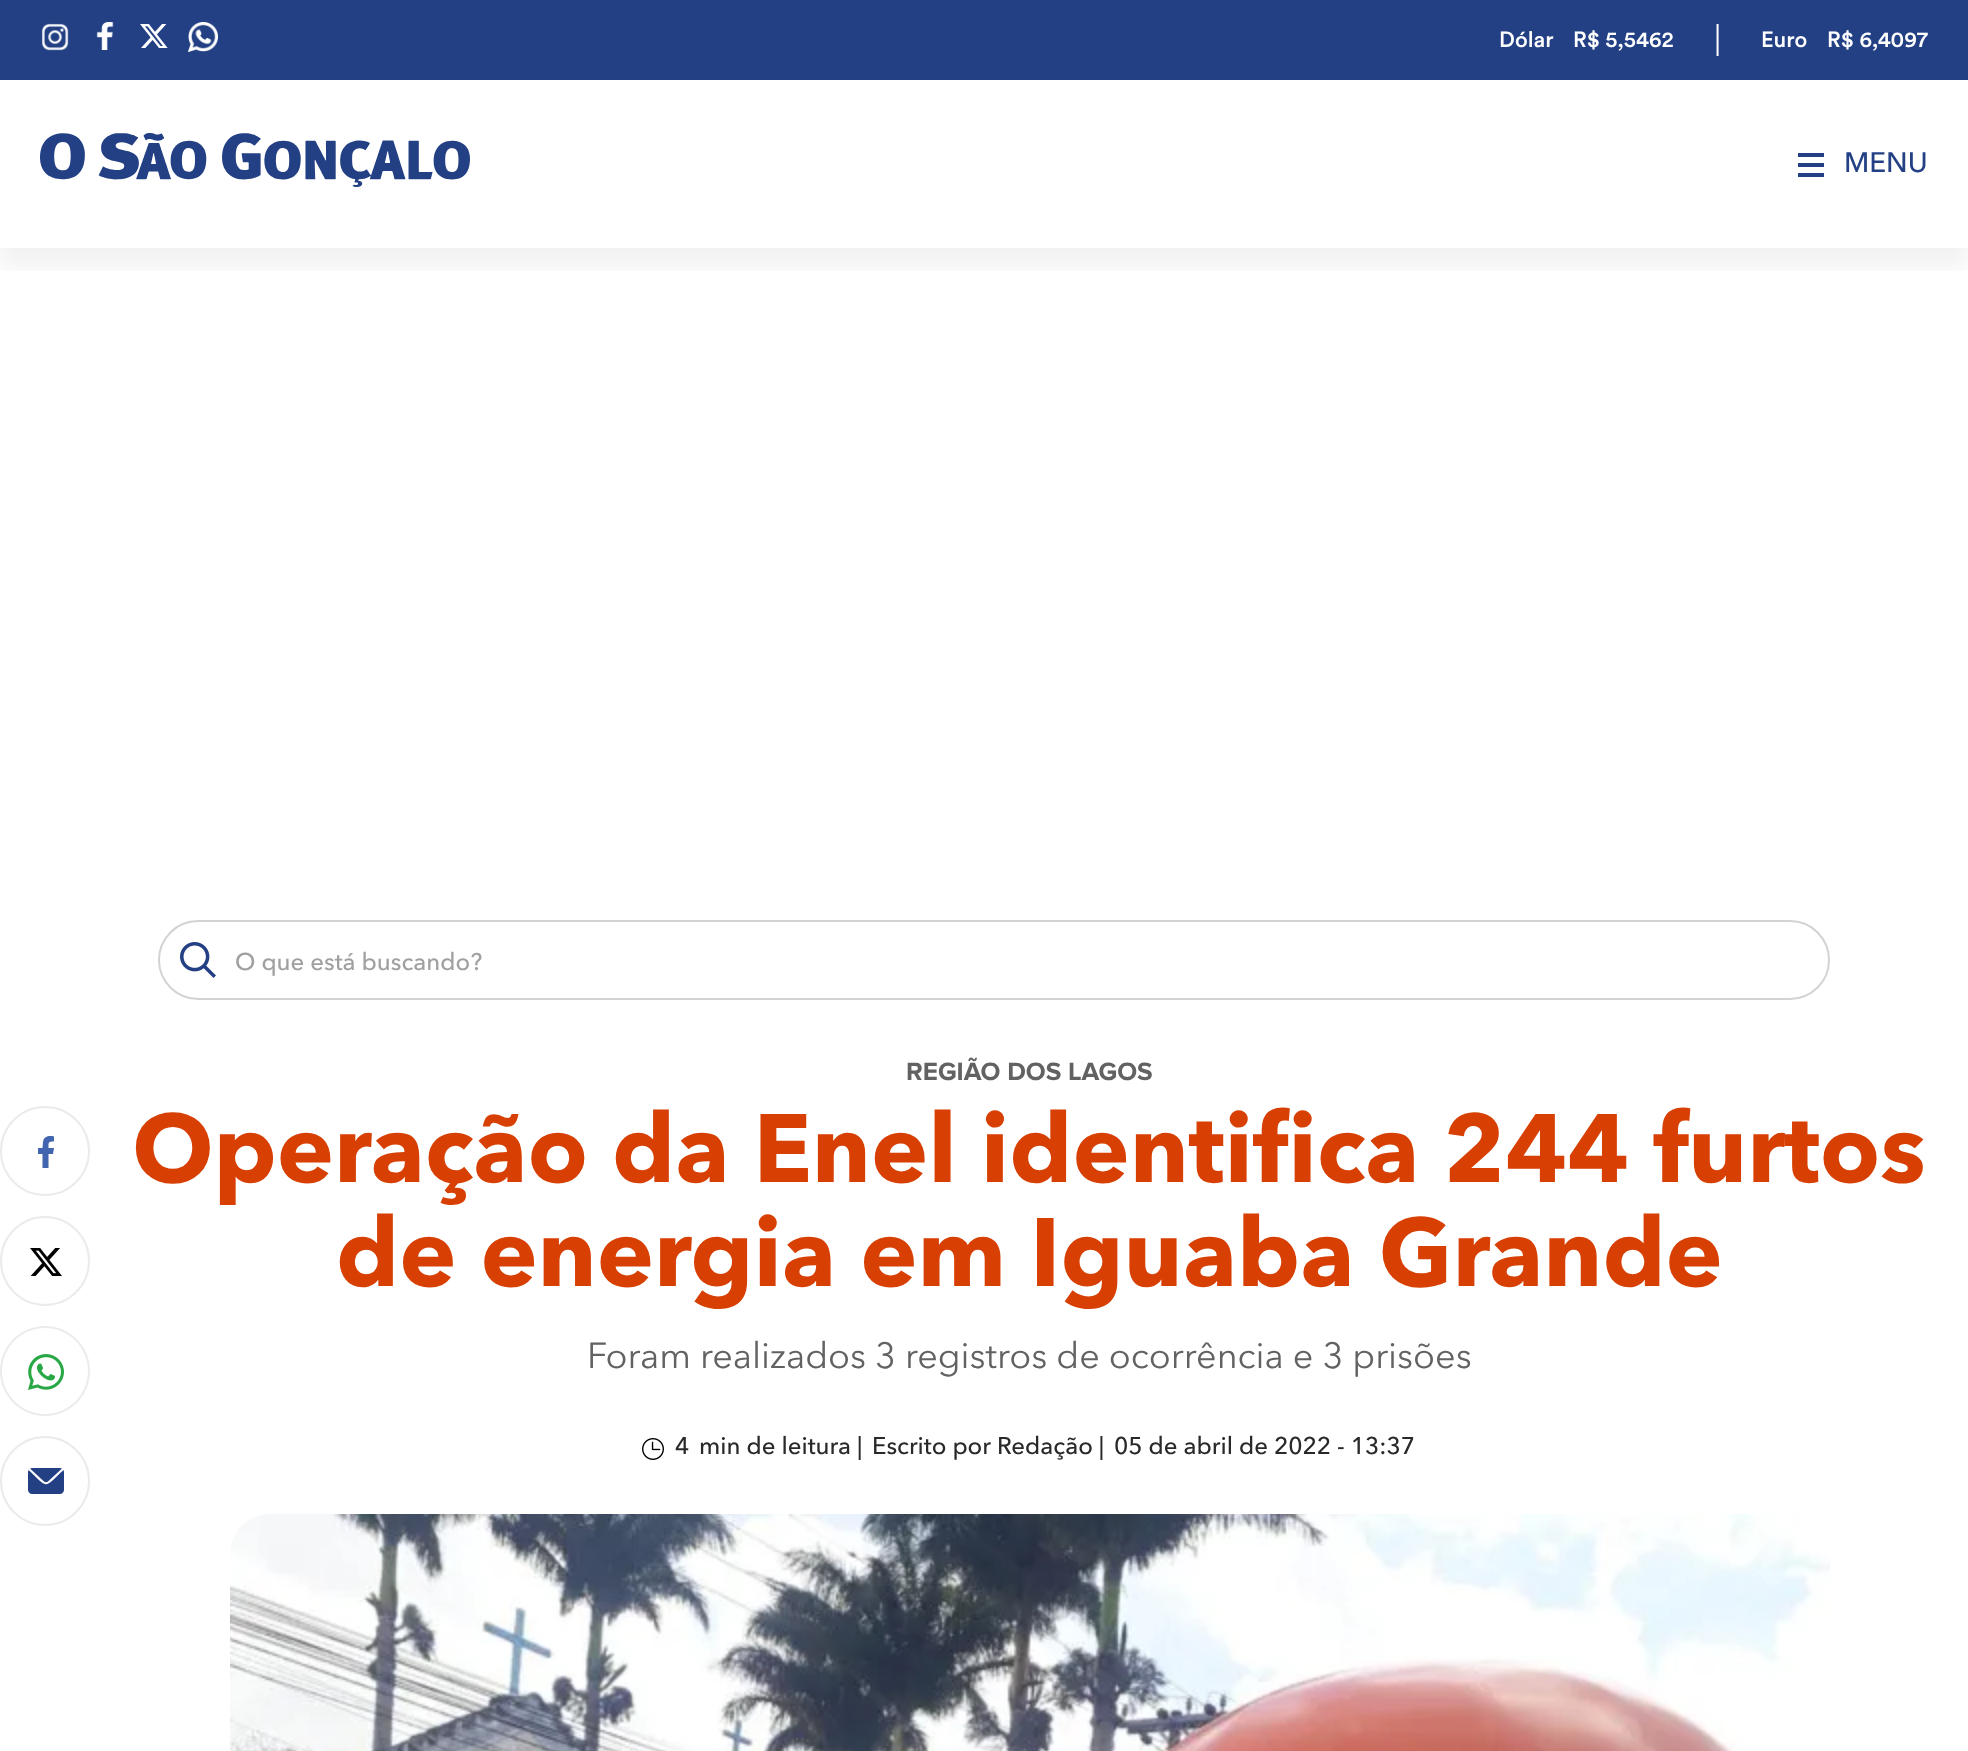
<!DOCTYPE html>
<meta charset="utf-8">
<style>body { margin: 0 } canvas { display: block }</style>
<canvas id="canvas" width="1968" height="1751"></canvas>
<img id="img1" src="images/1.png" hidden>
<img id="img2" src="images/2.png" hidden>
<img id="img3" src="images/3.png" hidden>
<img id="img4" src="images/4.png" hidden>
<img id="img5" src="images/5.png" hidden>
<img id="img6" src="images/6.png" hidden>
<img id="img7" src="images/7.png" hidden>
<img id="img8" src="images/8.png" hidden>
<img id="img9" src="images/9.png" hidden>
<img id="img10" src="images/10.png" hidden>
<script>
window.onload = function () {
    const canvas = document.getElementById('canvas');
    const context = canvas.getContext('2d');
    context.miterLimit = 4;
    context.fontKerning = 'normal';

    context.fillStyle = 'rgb(255, 255, 255)';
    context.fillRect(0, 0, 1968, 1751);
    context.fillStyle = 'rgb(35, 64, 132)';
    context.fillRect(0, 0, 1968, 80);
    context.drawImage(document.getElementById('img1'), 41, 23, 28, 28);
    context.drawImage(document.getElementById('img2'), 96, 22, 18, 28);
    context.drawImage(document.getElementById('img3'), 140, 24, 28, 24);
    context.drawImage(document.getElementById('img4'), 188, 22, 30, 30);
    context.save();
    context.beginPath();
    context.rect(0, 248, 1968, 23);
    context.clip();
    context.fillStyle = 'rgba(0, 0, 0, 0.05)';
    context.filter = 'blur(10px)';
    context.beginPath();
    context.rect(0, 100, 1968, 168);
    context.fill();
    context.filter = 'none';
    context.restore();
    context.drawImage(document.getElementById('img5'), 40, 133, 430, 54);
    context.fillRect(1798, 153, 26, 4);
    context.fillRect(1798, 163, 26, 4);
    context.fillRect(1798, 173, 26, 4);
    context.beginPath();
    context.roundRect(159, 921, 1670, 78, 39);
    context.strokeStyle = 'rgb(211, 211, 211)';
    context.lineWidth = 2;
    context.stroke();
    context.drawImage(document.getElementById('img6'), 180, 942, 36, 36);
    context.beginPath();
    context.arc(45, 1151, 44, 0, 2 * Math.PI);
    context.strokeStyle = 'rgb(235, 235, 235)';
    context.stroke();
    context.fillStyle = 'rgb(65, 101, 175)';
    context.beginPath();
    context.moveTo(53, 1154);
    context.lineTo(54, 1148);
    context.lineTo(48.5, 1148);
    context.bezierCurveTo(48.5, 1142.5, 48, 1141.5, 54, 1141.5);
    context.lineTo(54, 1136.5);
    context.bezierCurveTo(49, 1135.5, 44, 1136, 43, 1142);
    context.lineTo(42.5, 1148);
    context.lineTo(38, 1148);
    context.lineTo(38, 1154);
    context.lineTo(42.5, 1154);
    context.lineTo(42.5, 1168);
    context.lineTo(48.5, 1168);
    context.lineTo(48.5, 1154);
    context.closePath();
    context.fill();
    context.beginPath();
    context.arc(45, 1261, 44, 0, 2 * Math.PI);
    context.stroke();
    context.drawImage(document.getElementById('img7'), 30, 1248, 32, 28);
    context.drawImage(document.getElementById('img8'), 0, 1326, 90, 90);
    context.beginPath();
    context.arc(45, 1481, 44, 0, 2 * Math.PI);
    context.stroke();
    context.fillStyle = 'rgb(35, 64, 132)';
    context.beginPath();
    context.moveTo(63.5, 1470);
    context.bezierCurveTo(43, 1489, 49, 1489, 28.5, 1470);
    context.lineTo(28, 1472);
    context.lineTo(28, 1490);
    context.bezierCurveTo(28, 1492, 30, 1494, 32, 1494);
    context.lineTo(60, 1494);
    context.bezierCurveTo(62, 1494, 64, 1492, 64, 1490);
    context.lineTo(64, 1472);
    context.closePath();
    context.fill();
    context.beginPath();
    context.moveTo(48, 1481.5);
    context.lineTo(62, 1468.5);
    context.lineTo(60, 1468);
    context.lineTo(32, 1468);
    context.lineTo(30, 1468.5);
    context.lineTo(44, 1481.5);
    context.bezierCurveTo(45, 1482.5, 47, 1482.5, 48, 1481.5);
    context.closePath();
    context.fill();
    context.drawImage(document.getElementById('img9'), 642, 1438, 22, 22);
    context.drawImage(document.getElementById('img10'), 230, 1514, 1600, 237);
    context.font = '500 22px Circular';
    context.fillStyle = 'rgb(255, 255, 255)';
    context.fillText('Dólar', 1499, 47);
    context.fillText('R$ 5,5462', 1573, 47);
    context.font = '32px Avenir Next';
    context.fillText('|', 1714, 48);
    context.font = '500 22px Circular';
    context.fillText('Euro', 1761, 47);
    context.fillText('R$ 6,4097', 1827, 47);
    context.font = '500 28px Avenir Next';
    context.fillStyle = 'rgb(35, 64, 132)';
    context.fillText('MENU', 1844, 172);
    context.font = '500 24px Avenir Next';
    context.fillStyle = 'rgb(160, 160, 160)';
    context.fillText('O que está buscando?', 235, 970);
    context.font = 'bold 26px Proxima Nova';
    context.fillStyle = 'rgb(98, 98, 98)';
    context.fillText('REGIÃO DOS LAGOS', 906, 1080);
    context.font = 'bold 96px Avenir Next';
    context.fillStyle = 'rgb(215, 63, 3)';
    context.fillText('Operação da Enel identifica 244 furtos', 132, 1182);
    context.fillText('de energia em Iguaba Grande', 336, 1286);
    context.font = '36px Avenir Next';
    context.fillStyle = 'rgb(98, 98, 98)';
    context.fillText('Foram realizados 3 registros de ocorrência e 3 prisões', 587, 1368);
    context.font = '500 24px Avenir Next';
    context.fillStyle = 'rgb(41, 41, 41)';
    context.fillText('4', 675, 1454);
    context.fillText('min de leitura |', 699, 1454);
    context.fillText('Escrito por Redação |', 872, 1454);
    context.fillText('05 de abril de 2022 - 13:37', 1114, 1454);
};
</script>
